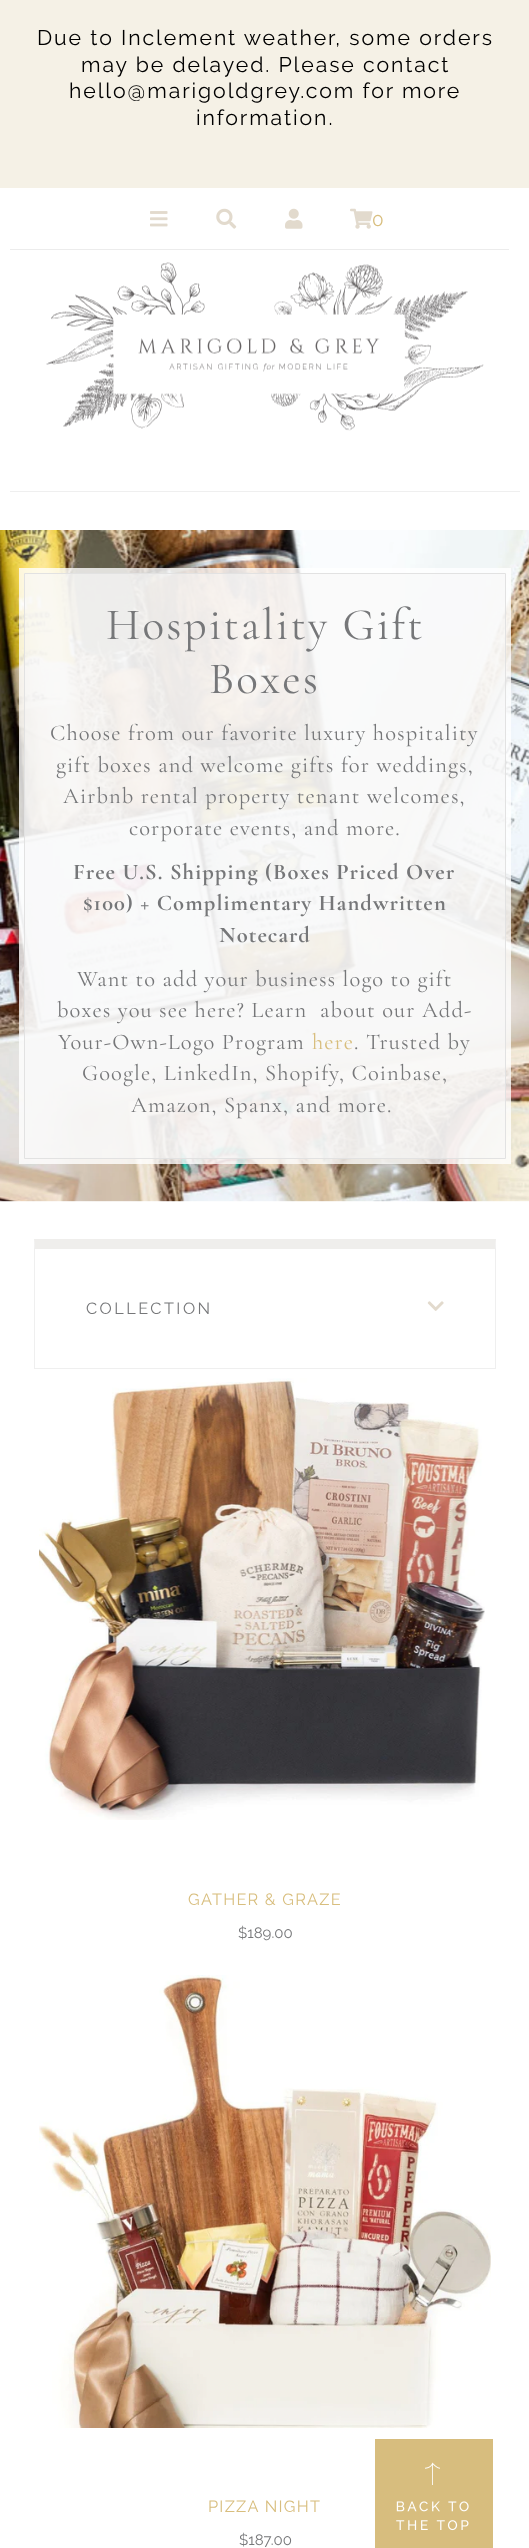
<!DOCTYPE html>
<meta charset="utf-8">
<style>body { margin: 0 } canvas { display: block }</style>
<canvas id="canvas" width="529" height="2548"></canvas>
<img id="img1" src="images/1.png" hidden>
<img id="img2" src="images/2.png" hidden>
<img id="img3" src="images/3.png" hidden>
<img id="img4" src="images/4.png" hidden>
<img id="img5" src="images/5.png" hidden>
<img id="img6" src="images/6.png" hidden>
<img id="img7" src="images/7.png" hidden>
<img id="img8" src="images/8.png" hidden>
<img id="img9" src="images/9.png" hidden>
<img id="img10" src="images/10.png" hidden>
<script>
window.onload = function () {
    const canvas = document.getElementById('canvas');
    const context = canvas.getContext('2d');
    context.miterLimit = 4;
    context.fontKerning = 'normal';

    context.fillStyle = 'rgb(255, 255, 255)';
    context.fillRect(0, 0, 529, 2548);
    context.fillStyle = 'rgb(245, 241, 230)';
    context.fillRect(0, 0, 529, 188);
    context.fillStyle = 'rgb(236, 236, 236)';
    context.fillRect(10, 249, 499, 1);
    context.drawImage(document.getElementById('img1'), 150, 211, 18, 16);
    context.drawImage(document.getElementById('img2'), 216, 208, 21, 21);
    context.drawImage(document.getElementById('img3'), 285, 208, 18, 21);
    context.drawImage(document.getElementById('img4'), 350, 208, 23, 21);
    context.drawImage(document.getElementById('img5'), 46, 262, 438, 169);
    context.fillStyle = 'rgb(239, 239, 239)';
    context.fillRect(10, 491, 510, 1);
    context.drawImage(document.getElementById('img6'), 0, 530, 529, 672);
    context.fillStyle = 'rgba(255, 255, 255, 0.8)';
    context.fillRect(19, 568, 492, 596);
    context.fillStyle = 'rgba(246, 246, 246, 0.6)';
    context.beginPath();
    context.rect(24.5, 573.5, 481, 585);
    context.fill();
    context.strokeStyle = 'rgb(226, 226, 226)';
    context.stroke();
    context.fillStyle = 'rgb(239, 238, 236)';
    context.beginPath();
    context.moveTo(34, 1239);
    context.lineTo(496, 1239);
    context.lineTo(495, 1249);
    context.lineTo(35, 1249);
    context.closePath();
    context.fill();
    context.fillStyle = 'rgb(239, 239, 239)';
    context.beginPath();
    context.moveTo(496, 1239);
    context.lineTo(496, 1369);
    context.lineTo(495, 1368);
    context.lineTo(495, 1249);
    context.closePath();
    context.fill();
    context.fillRect(34, 1368, 462, 1);
    context.beginPath();
    context.moveTo(34, 1369);
    context.lineTo(34, 1239);
    context.lineTo(35, 1249);
    context.lineTo(35, 1368);
    context.closePath();
    context.fill();
    context.drawImage(document.getElementById('img7'), 427, 1301, 17, 10);
    context.drawImage(document.getElementById('img8'), 39, 1378, 446, 442);
    context.drawImage(document.getElementById('img9'), 39, 1975, 452, 453);
    context.drawImage(document.getElementById('img10'), 375, 2439, 118, 109);
    context.letterSpacing = '1.9px';
    context.font = '100 21.25px Raleway';
    context.fillStyle = 'rgb(0, 0, 0)';
    context.fillText('Due to Inclement weather, some orders', 37, 45);
    context.fillText('may be delayed. Please contact', 81, 72);
    context.fillText('hello@marigoldgrey.com for more', 69, 98);
    context.fillText('information.', 196, 125);
    context.letterSpacing = '0px';
    context.font = '100 19px Raleway';
    context.fillStyle = 'rgb(216, 190, 126)';
    context.fillText('0', 372, 226);
    context.letterSpacing = '2.25px';
    context.font = '300 45px Cormorant Garamond';
    context.fillStyle = 'rgb(118, 119, 121)';
    context.fillText('Hospitality Gift', 106, 639);
    context.fillText('Boxes', 209, 693);
    context.letterSpacing = '1.1px';
    context.font = '300 22.5px Cormorant Garamond';
    context.fillText('Choose from our favorite luxury hospitality', 50, 740);
    context.fillText('gift boxes and welcome gifts for weddings,', 56, 772);
    context.fillText('Airbnb rental property tenant welcomes,', 63, 803);
    context.fillText('corporate events, and more.', 129, 835);
    context.font = 'bold 22.5px Cormorant Garamond';
    context.fillText('Free U.S. Shipping (Boxes Priced Over', 73, 879);
    context.fillText('$100) + Complimentary Handwritten', 83, 910);
    context.fillText('Notecard', 219, 942);
    context.font = '300 22.5px Cormorant Garamond';
    context.fillText('Want to add your business logo to gift', 77, 986);
    context.fillText('boxes you see here? Learn  about our Add-', 57, 1017);
    context.fillText('Your-Own-Logo Program', 58, 1049);
    context.fillStyle = 'rgb(216, 190, 126)';
    context.fillText('here', 312, 1049);
    context.fillStyle = 'rgb(118, 119, 121)';
    context.fillText('. Trusted by', 354, 1049);
    context.fillText('Google, LinkedIn, Shopify, Coinbase,', 82, 1080);
    context.fillText('Amazon, Spanx, and more.', 131, 1112);
    context.letterSpacing = '2.5px';
    context.font = '100 16.25px Raleway';
    context.fillText('COLLECTION', 86, 1314);
    context.letterSpacing = '1.25px';
    context.fillStyle = 'rgb(216, 190, 126)';
    context.fillText('GATHER & GRAZE', 188, 1905);
    context.letterSpacing = '0px';
    context.font = '100 15px Raleway';
    context.fillStyle = 'rgb(118, 119, 121)';
    context.fillText('$189.00', 238, 1938);
    context.letterSpacing = '1.25px';
    context.font = '100 16.25px Raleway';
    context.fillStyle = 'rgb(216, 190, 126)';
    context.fillText('PIZZA NIGHT', 208, 2512);
    context.letterSpacing = '0px';
    context.font = '100 15px Raleway';
    context.fillStyle = 'rgb(118, 119, 121)';
    context.fillText('$187.00', 239, 2545);
};
</script>
